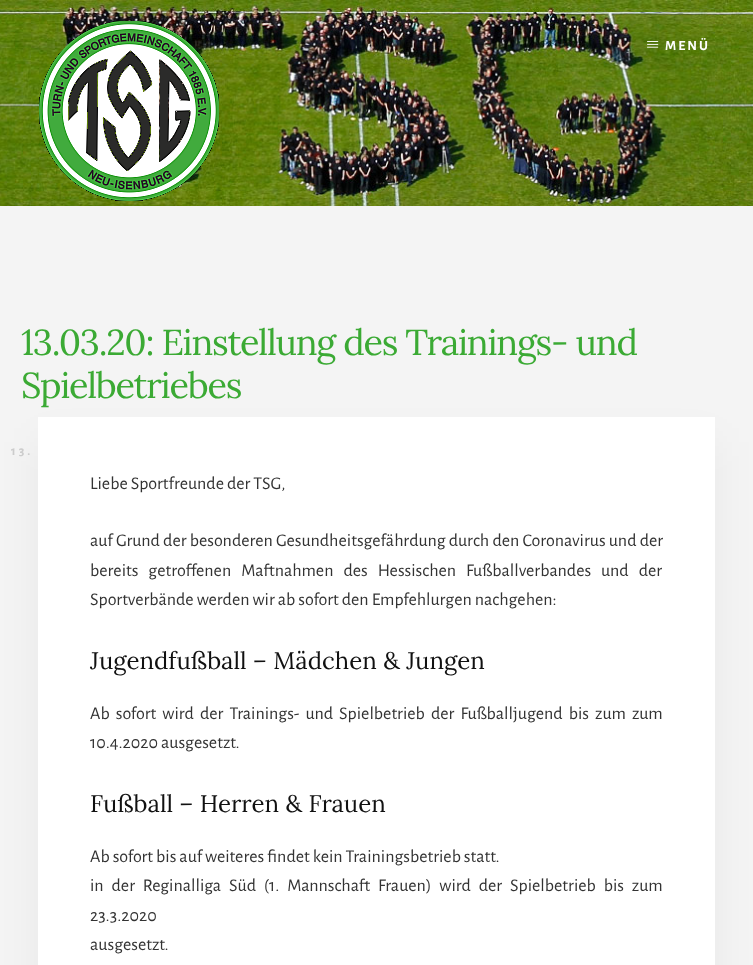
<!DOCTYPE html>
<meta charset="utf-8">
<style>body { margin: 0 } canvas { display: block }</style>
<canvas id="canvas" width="753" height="965"></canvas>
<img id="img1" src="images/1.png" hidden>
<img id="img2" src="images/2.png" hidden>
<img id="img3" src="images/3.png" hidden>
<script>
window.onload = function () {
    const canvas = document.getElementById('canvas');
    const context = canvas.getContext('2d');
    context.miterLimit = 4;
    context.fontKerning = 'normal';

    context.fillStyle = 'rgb(244, 244, 244)';
    context.fillRect(0, 0, 753, 965);
    context.drawImage(document.getElementById('img1'), 0, 0, 753, 206);
    context.drawImage(document.getElementById('img2'), 39, 21, 180, 180);
    context.drawImage(document.getElementById('img3'), 647, 41, 12, 7);
    context.fillStyle = 'rgba(0, 0, 0, 0.05)';
    context.filter = 'blur(20px)';
    context.beginPath();
    context.rect(38, 442, 677, 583);
    context.fill();
    context.filter = 'none';
    context.fillStyle = 'rgb(255, 255, 255)';
    context.fillRect(38, 417, 677, 548);
    context.letterSpacing = '2px';
    context.font = 'bold 14px Alegreya Sans';
    context.fillText('MENÜ', 665, 50);
    context.letterSpacing = '-1.25px';
    context.font = '36px Lora';
    context.fillStyle = 'rgb(59, 170, 52)';
    context.fillText('13.03.20: Einstellung des Trainings- und', 21, 355);
    context.fillText('Spielbetriebes', 21, 398);
    context.letterSpacing = '3px';
    context.font = 'bold 13px Alegreya Sans';
    context.fillStyle = 'rgb(204, 204, 204)';
    context.fillText('13.', 11, 455);
    context.letterSpacing = '0px';
    context.font = '18px Alegreya Sans';
    context.fillStyle = 'rgb(51, 51, 51)';
    context.fillText('Liebe Sportfreunde der TSG,', 90, 489);
    context.wordSpacing = '0.25px';
    context.fillText('auf Grund der besonderen Gesundheitsgefährdung durch den Coronavirus und der', 90, 546);
    context.wordSpacing = '7px';
    context.fillText('bereits getroffenen Maftnahmen des Hessischen Fußballverbandes und der', 90, 576);
    context.wordSpacing = '0px';
    context.fillText('Sportverbände werden wir ab sofort den Empfehlurgen nachgehen:', 90, 605);
    context.font = '24px Lora';
    context.fillStyle = 'rgb(17, 17, 17)';
    context.fillText('Jugendfußball – Mädchen & Jungen', 90, 669);
    context.wordSpacing = '3.1px';
    context.font = '18px Alegreya Sans';
    context.fillStyle = 'rgb(51, 51, 51)';
    context.fillText('Ab sofort wird der Trainings- und Spielbetrieb der Fußballjugend bis zum zum', 90, 719);
    context.wordSpacing = '0px';
    context.fillText('10.4.2020 ausgesetzt.', 90, 748);
    context.font = '24px Lora';
    context.fillStyle = 'rgb(17, 17, 17)';
    context.fillText('Fußball – Herren & Frauen', 90, 812);
    context.font = '18px Alegreya Sans';
    context.fillStyle = 'rgb(51, 51, 51)';
    context.fillText('Ab sofort bis auf weiteres findet kein Trainingsbetrieb statt.', 90, 862);
    context.wordSpacing = '4.9px';
    context.fillText('in der Reginalliga Süd (1. Mannschaft Frauen) wird der Spielbetrieb bis zum', 90, 891);
    context.wordSpacing = '0px';
    context.fillText('23.3.2020', 90, 921);
    context.fillText('ausgesetzt.', 90, 950);
};
</script>
